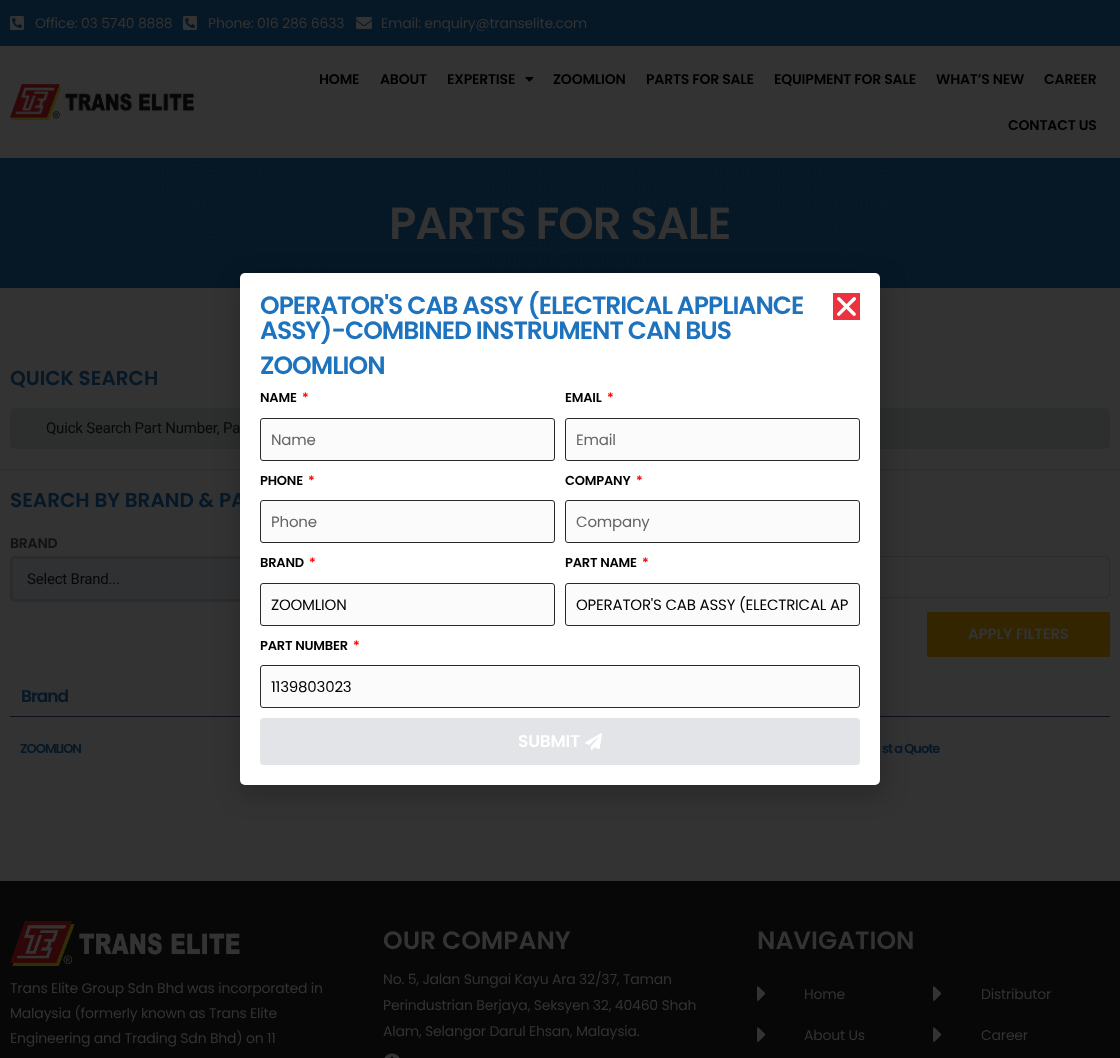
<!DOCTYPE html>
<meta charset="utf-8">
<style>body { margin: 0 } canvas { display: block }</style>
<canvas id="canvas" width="1120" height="1058"></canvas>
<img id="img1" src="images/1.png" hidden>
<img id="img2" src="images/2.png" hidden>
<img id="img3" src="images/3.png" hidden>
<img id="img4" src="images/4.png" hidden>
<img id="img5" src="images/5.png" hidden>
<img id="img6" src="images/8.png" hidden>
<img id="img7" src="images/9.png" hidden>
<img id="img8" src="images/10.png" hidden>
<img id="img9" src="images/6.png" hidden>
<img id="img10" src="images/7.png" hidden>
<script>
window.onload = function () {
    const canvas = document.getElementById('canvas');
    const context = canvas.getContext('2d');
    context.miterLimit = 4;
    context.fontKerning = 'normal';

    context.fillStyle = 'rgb(51, 51, 51)';
    context.fillRect(0, 0, 1120, 1058);
    context.fillStyle = 'rgb(6, 23, 38)';
    context.fillRect(0, 0, 1120, 46);
    context.drawImage(document.getElementById('img1'), 10, 16, 14, 14);
    context.drawImage(document.getElementById('img1'), 183, 16, 14, 14);
    context.drawImage(document.getElementById('img2'), 356, 17, 16, 12);
    context.drawImage(document.getElementById('img3'), 10, 84, 184, 36);
    context.drawImage(document.getElementById('img4'), 525, 77, 9, 5);
    context.fillRect(0, 158, 1120, 130);
    context.drawImage(document.getElementById('img5'), 130, 158, 831, 130);
    context.fillStyle = 'rgb(45, 46, 46)';
    context.beginPath();
    context.roundRect(10, 408, 1100, 41, 5);
    context.fill();
    context.fillStyle = 'rgb(45, 45, 45)';
    context.fillRect(0, 469, 1120, 1);
    context.fillStyle = 'rgb(48, 49, 50)';
    context.beginPath();
    context.roundRect(11.5, 557.5, 520, 43, 3.5);
    context.fill();
    context.strokeStyle = 'rgb(44, 44, 44)';
    context.lineWidth = 3;
    context.stroke();
    context.beginPath();
    context.roundRect(560.5, 556.5, 549, 41, 4.5);
    context.lineWidth = 1;
    context.stroke();
    context.fillStyle = 'rgb(50, 37, 0)';
    context.beginPath();
    context.roundRect(927, 612, 183, 45, 2);
    context.fill();
    context.fillStyle = 'rgb(12, 17, 26)';
    context.fillRect(10, 716, 1100, 1);
    context.fillStyle = 'rgba(0, 0, 0, 0.2)';
    context.filter = 'blur(11.5px)';
    context.beginPath();
    context.roundRect(239, 278, 646, 518, 8);
    context.fill();
    context.filter = 'none';
    context.fillStyle = 'rgb(7, 7, 8)';
    context.fillRect(0, 881, 1120, 177);
    context.drawImage(document.getElementById('img6'), 10, 921, 230, 45);
    context.drawImage(document.getElementById('img7'), 384, 1053, 16, 5);
    context.drawImage(document.getElementById('img8'), 757, 986, 9, 15);
    context.drawImage(document.getElementById('img8'), 757, 1027, 9, 15);
    context.drawImage(document.getElementById('img8'), 933, 986, 9, 15);
    context.drawImage(document.getElementById('img8'), 933, 1027, 9, 15);
    context.letterSpacing = '-0.2px';
    context.font = '14px Poppins';
    context.fillStyle = 'rgb(51, 51, 51)';
    context.fillText('Office: 03 5740 8888', 35, 28);
    context.fillText('Phone: 016 286 6633', 208, 28);
    context.fillText('Email: enquiry@transelite.com', 381, 28);
    context.font = '600 14px Poppins';
    context.fillStyle = 'rgb(0, 0, 0)';
    context.fillText('HOME', 319, 84);
    context.fillText('ABOUT', 380, 84);
    context.fillText('EXPERTISE', 447, 84);
    context.fillText('ZOOMLION', 553, 84);
    context.fillText('PARTS FOR SALE', 646, 84);
    context.fillText('EQUIPMENT FOR SALE', 774, 84);
    context.fillText('WHAT’S NEW', 936, 84);
    context.fillText('CAREER', 1044, 84);
    context.fillText('CONTACT US', 1008, 130);
    context.letterSpacing = '-1px';
    context.font = '600 45px Poppins';
    context.fillStyle = 'rgb(51, 51, 51)';
    context.fillText('PARTS FOR SALE', 389, 239);
    context.letterSpacing = '0px';
    context.font = '600 20px Poppins';
    context.fillStyle = 'rgb(6, 23, 38)';
    context.fillText('QUICK SEARCH', 10, 385);
    context.letterSpacing = '-0.2px';
    context.font = '15px Roboto';
    context.fillStyle = 'rgb(8, 8, 8)';
    context.fillText('Quick Search Part Number, Pa', 46, 433);
    context.letterSpacing = '0px';
    context.font = '600 20px Poppins';
    context.fillStyle = 'rgb(6, 23, 38)';
    context.fillText('SEARCH BY BRAND & PA', 10, 507);
    context.letterSpacing = '-0.2px';
    context.font = '600 14px Poppins';
    context.fillStyle = 'rgb(17, 18, 19)';
    context.fillText('BRAND', 10, 548);
    context.font = '15px Roboto';
    context.fillStyle = 'rgb(8, 8, 8)';
    context.fillText('Select Brand...', 27, 584);
    context.font = '600 15px Poppins';
    context.fillStyle = 'rgb(51, 51, 51)';
    context.fillText('APPLY FILTERS', 968, 639);
    context.letterSpacing = '-1px';
    context.font = '600 17px Poppins';
    context.fillStyle = 'rgb(6, 23, 38)';
    context.fillText('Brand', 21, 702);
    context.font = '600 13px Poppins';
    context.fillText('ZOOMLION', 20, 753);
    context.fillText('st a Quote', 882, 753);
    context.fillStyle = 'rgb(255, 255, 255)';
    context.beginPath();
    context.roundRect(240, 273, 640, 512, 5);
    context.fill();
    context.font = '600 25px Poppins';
    context.fillStyle = 'rgb(30, 115, 190)';
    context.fillText('OPERATOR\'S CAB ASSY (ELECTRICAL APPLIANCE', 260, 314);
    context.fillText('ASSY)-COMBINED INSTRUMENT CAN BUS', 260, 339);
    context.fillText('ZOOMLION', 260, 374);
    context.letterSpacing = '-0.2px';
    context.font = '600 13px Poppins';
    context.fillStyle = 'rgb(0, 0, 0)';
    context.fillText('NAME', 260, 402);
    context.fillStyle = 'rgb(255, 0, 0)';
    context.fillText('*', 302, 402);
    context.fillStyle = 'rgb(251, 251, 251)';
    context.beginPath();
    context.roundRect(260.5, 418.5, 294, 42, 2.5);
    context.fill();
    context.strokeStyle = 'rgb(41, 41, 41)';
    context.stroke();
    context.font = '15px Poppins';
    context.fillStyle = 'rgb(100, 100, 100)';
    context.fillText('Name', 271, 445);
    context.font = '600 13px Poppins';
    context.fillStyle = 'rgb(0, 0, 0)';
    context.fillText('EMAIL', 565, 402);
    context.fillStyle = 'rgb(255, 0, 0)';
    context.fillText('*', 607, 402);
    context.fillStyle = 'rgb(251, 251, 251)';
    context.beginPath();
    context.roundRect(565.5, 418.5, 294, 42, 2.5);
    context.fill();
    context.stroke();
    context.font = '15px Poppins';
    context.fillStyle = 'rgb(100, 100, 100)';
    context.fillText('Email', 576, 445);
    context.font = '600 13px Poppins';
    context.fillStyle = 'rgb(0, 0, 0)';
    context.fillText('PHONE', 260, 485);
    context.fillStyle = 'rgb(255, 0, 0)';
    context.fillText('*', 308, 485);
    context.fillStyle = 'rgb(251, 251, 251)';
    context.beginPath();
    context.roundRect(260.5, 500.5, 294, 42, 2.5);
    context.fill();
    context.stroke();
    context.font = '15px Poppins';
    context.fillStyle = 'rgb(100, 100, 100)';
    context.fillText('Phone', 271, 527);
    context.font = '600 13px Poppins';
    context.fillStyle = 'rgb(0, 0, 0)';
    context.fillText('COMPANY', 565, 485);
    context.fillStyle = 'rgb(255, 0, 0)';
    context.fillText('*', 636, 485);
    context.fillStyle = 'rgb(251, 251, 251)';
    context.beginPath();
    context.roundRect(565.5, 500.5, 294, 42, 2.5);
    context.fill();
    context.stroke();
    context.font = '15px Poppins';
    context.fillStyle = 'rgb(100, 100, 100)';
    context.fillText('Company', 576, 527);
    context.font = '600 13px Poppins';
    context.fillStyle = 'rgb(0, 0, 0)';
    context.fillText('BRAND', 260, 567);
    context.fillStyle = 'rgb(255, 0, 0)';
    context.fillText('*', 309, 567);
    context.fillStyle = 'rgb(251, 251, 251)';
    context.beginPath();
    context.roundRect(260.5, 583.5, 294, 42, 2.5);
    context.fill();
    context.stroke();
    context.font = '15px Poppins';
    context.fillStyle = 'rgb(0, 0, 0)';
    context.fillText('ZOOMLION', 271, 610);
    context.font = '600 13px Poppins';
    context.fillText('PART NAME', 565, 567);
    context.fillStyle = 'rgb(255, 0, 0)';
    context.fillText('*', 642, 567);
    context.fillStyle = 'rgb(251, 251, 251)';
    context.beginPath();
    context.roundRect(565.5, 583.5, 294, 42, 2.5);
    context.fill();
    context.stroke();
    context.font = '15px Poppins';
    context.fillStyle = 'rgb(0, 0, 0)';
    context.fillText('OPERATOR\'S CAB ASSY (ELECTRICAL AP', 576, 610);
    context.font = '600 13px Poppins';
    context.fillText('PART NUMBER', 260, 650);
    context.fillStyle = 'rgb(255, 0, 0)';
    context.fillText('*', 353, 650);
    context.fillStyle = 'rgb(251, 251, 251)';
    context.beginPath();
    context.roundRect(260.5, 665.5, 599, 42, 2.5);
    context.fill();
    context.stroke();
    context.font = '15px Poppins';
    context.fillStyle = 'rgb(0, 0, 0)';
    context.fillText('1139803023', 271, 692);
    context.fillStyle = 'rgb(226, 228, 231)';
    context.beginPath();
    context.roundRect(260, 718, 600, 47, 4);
    context.fill();
    context.font = '600 17px Poppins';
    context.fillStyle = 'rgb(255, 255, 255)';
    context.fillText('SUBMIT', 518, 747);
    context.drawImage(document.getElementById('img9'), 585, 733, 17, 17);
    context.fillStyle = 'rgb(235, 50, 62)';
    context.fillRect(833, 293, 27, 27);
    context.drawImage(document.getElementById('img10'), 836, 297, 21, 19);
    context.font = '14px Poppins';
    context.fillStyle = 'rgb(51, 51, 51)';
    context.fillText('Trans Elite Group Sdn Bhd was incorporated in', 10, 993);
    context.fillText('Malaysia (formerly known as Trans Elite', 10, 1018);
    context.fillText('Engineering and Trading Sdn Bhd) on 11', 10, 1043);
    context.letterSpacing = '0px';
    context.font = '600 25px Poppins';
    context.fillText('OUR COMPANY', 383, 949);
    context.letterSpacing = '-0.2px';
    context.font = '14px Poppins';
    context.fillText('No. 5, Jalan Sungai Kayu Ara 32/37, Taman', 383, 984);
    context.fillText('Perindustrian Berjaya, Seksyen 32, 40460 Shah', 383, 1010);
    context.fillText('Alam, Selangor Darul Ehsan, Malaysia.', 383, 1036);
    context.letterSpacing = '0px';
    context.font = '600 25px Poppins';
    context.fillText('NAVIGATION', 757, 949);
    context.letterSpacing = '-0.2px';
    context.font = '14px Poppins';
    context.fillText('Home', 804, 999);
    context.fillText('About Us', 804, 1040);
    context.fillText('Distributor', 981, 999);
    context.fillText('Career', 981, 1040);
};
</script>
